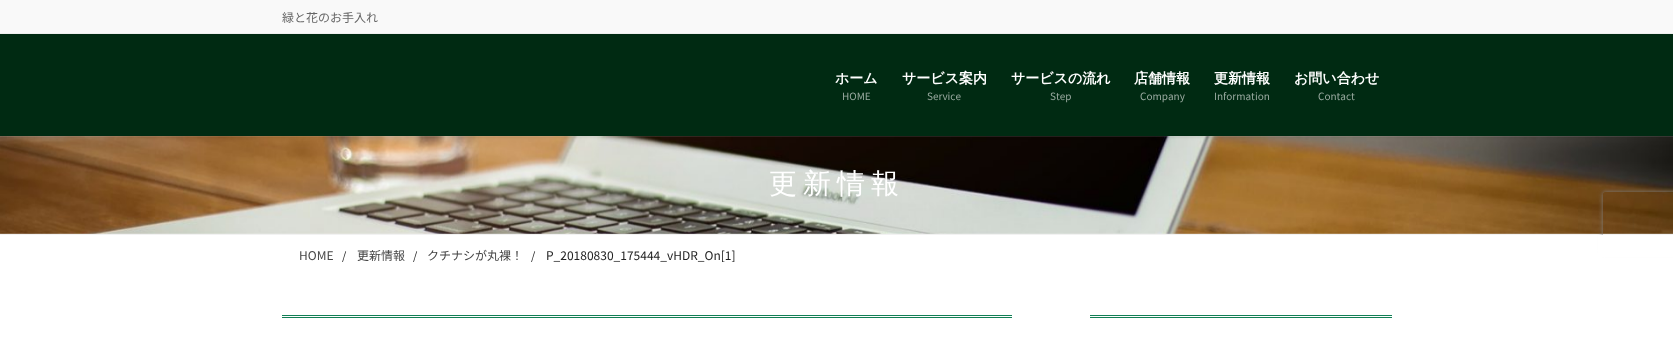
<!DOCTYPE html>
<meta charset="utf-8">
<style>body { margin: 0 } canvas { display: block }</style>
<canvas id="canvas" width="1673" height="337"></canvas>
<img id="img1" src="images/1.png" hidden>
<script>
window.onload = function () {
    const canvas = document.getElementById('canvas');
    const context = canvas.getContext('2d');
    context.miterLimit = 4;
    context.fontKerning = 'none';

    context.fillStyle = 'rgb(255, 255, 255)';
    context.fillRect(0, 0, 1673, 337);
    context.drawImage(document.getElementById('img1'), 0, 136, 1673, 98);
    context.fillStyle = 'rgba(0, 0, 0, 0.1)';
    context.filter = 'blur(1.5px)';
    context.beginPath();
    context.rect(0, 1, 1673, 136);
    context.fill();
    context.filter = 'none';
    context.fillStyle = 'rgb(0, 42, 18)';
    context.fillRect(0, 34, 1673, 102);
    context.fillStyle = 'rgb(249, 249, 249)';
    context.fillRect(0, 0, 1673, 33);
    context.fillStyle = 'rgb(239, 239, 239)';
    context.fillRect(0, 33, 1673, 1);
    context.save();
    context.beginPath();
    context.moveTo(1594, 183);
    context.lineTo(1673, 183);
    context.lineTo(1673, 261);
    context.lineTo(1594, 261);
    context.closePath();
    context.moveTo(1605, 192);
    context.lineTo(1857, 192);
    context.bezierCurveTo(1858, 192, 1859, 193, 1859, 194);
    context.lineTo(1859, 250);
    context.bezierCurveTo(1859, 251, 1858, 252, 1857, 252);
    context.lineTo(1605, 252);
    context.bezierCurveTo(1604, 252, 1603, 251, 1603, 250);
    context.lineTo(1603, 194);
    context.bezierCurveTo(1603, 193, 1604, 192, 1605, 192);
    context.closePath();
    context.clip('evenodd');
    context.fillStyle = 'rgb(128, 128, 128)';
    context.filter = 'blur(2.5px)';
    context.beginPath();
    context.roundRect(1603, 192, 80, 60, 2);
    context.fill();
    context.filter = 'none';
    context.restore();
    context.fillStyle = 'rgb(255, 255, 255)';
    context.fillRect(1598, 235, 75, 22);
    context.fillStyle = 'rgb(17, 127, 85)';
    context.fillRect(282, 315, 730, 1);
    context.fillRect(282, 317, 730, 1);
    context.fillRect(1090, 315, 302, 1);
    context.fillRect(1090, 317, 302, 1);
    context.fillStyle = 'rgba(0, 0, 0, 0.05)';
    context.fillRect(0, 234, 1673, 1);
    context.font = '12px Noto Sans JP';
    context.fillStyle = 'rgb(102, 102, 102)';
    context.fillText('緑と花のお手入れ', 282, 22);
    context.font = 'bold 14px WenQuanYi Zen Hei';
    context.fillStyle = 'rgb(255, 255, 255)';
    context.fillText('ホーム', 835, 83);
    context.font = '10px Noto Sans JP';
    context.fillStyle = 'rgb(153, 170, 160)';
    context.fillText('HOME', 842, 100);
    context.font = 'bold 14px WenQuanYi Zen Hei';
    context.fillStyle = 'rgb(255, 255, 255)';
    context.fillText('サービス案内', 902, 83);
    context.font = '10px Noto Sans JP';
    context.fillStyle = 'rgb(153, 170, 160)';
    context.fillText('Service', 927, 100);
    context.font = 'bold 14px WenQuanYi Zen Hei';
    context.fillStyle = 'rgb(255, 255, 255)';
    context.fillText('サービスの流れ', 1011, 83);
    context.font = '10px Noto Sans JP';
    context.fillStyle = 'rgb(153, 170, 160)';
    context.fillText('Step', 1050, 100);
    context.font = 'bold 14px WenQuanYi Zen Hei';
    context.fillStyle = 'rgb(255, 255, 255)';
    context.fillText('店舗情報', 1134, 83);
    context.font = '10px Noto Sans JP';
    context.fillStyle = 'rgb(153, 170, 160)';
    context.fillText('Company', 1140, 100);
    context.font = 'bold 14px WenQuanYi Zen Hei';
    context.fillStyle = 'rgb(255, 255, 255)';
    context.fillText('更新情報', 1214, 83);
    context.font = '10px Noto Sans JP';
    context.fillStyle = 'rgb(153, 170, 160)';
    context.fillText('Information', 1214, 100);
    context.font = 'bold 14px WenQuanYi Zen Hei';
    context.fillStyle = 'rgb(255, 255, 255)';
    context.fillText('お問い合わせ', 1294, 83);
    context.font = '10px Noto Sans JP';
    context.fillStyle = 'rgb(153, 170, 160)';
    context.fillText('Contact', 1318, 100);
    context.letterSpacing = '6px';
    context.font = '500 28px WenQuanYi Zen Hei';
    context.fillStyle = 'rgb(255, 255, 255)';
    context.fillText('更新情報', 769, 193);
    context.letterSpacing = '0px';
    context.font = '12px Noto Sans JP';
    context.fillStyle = 'rgb(69, 69, 69)';
    context.fillText('HOME', 299, 260);
    context.font = '11px Noto Sans JP';
    context.fillStyle = 'rgb(34, 34, 34)';
    context.fillText('/', 342, 260);
    context.font = '12px Noto Sans JP';
    context.fillStyle = 'rgb(69, 69, 69)';
    context.fillText('更新情報', 357, 260);
    context.font = '11px Noto Sans JP';
    context.fillStyle = 'rgb(34, 34, 34)';
    context.fillText('/', 413, 260);
    context.font = '12px Noto Sans JP';
    context.fillStyle = 'rgb(69, 69, 69)';
    context.fillText('クチナシが丸裸！', 427, 260);
    context.font = '11px Noto Sans JP';
    context.fillStyle = 'rgb(34, 34, 34)';
    context.fillText('/', 531, 260);
    context.font = '12px Noto Sans JP';
    context.fillText('P_20180830_175444_vHDR_On[1]', 546, 260);
};
</script>
